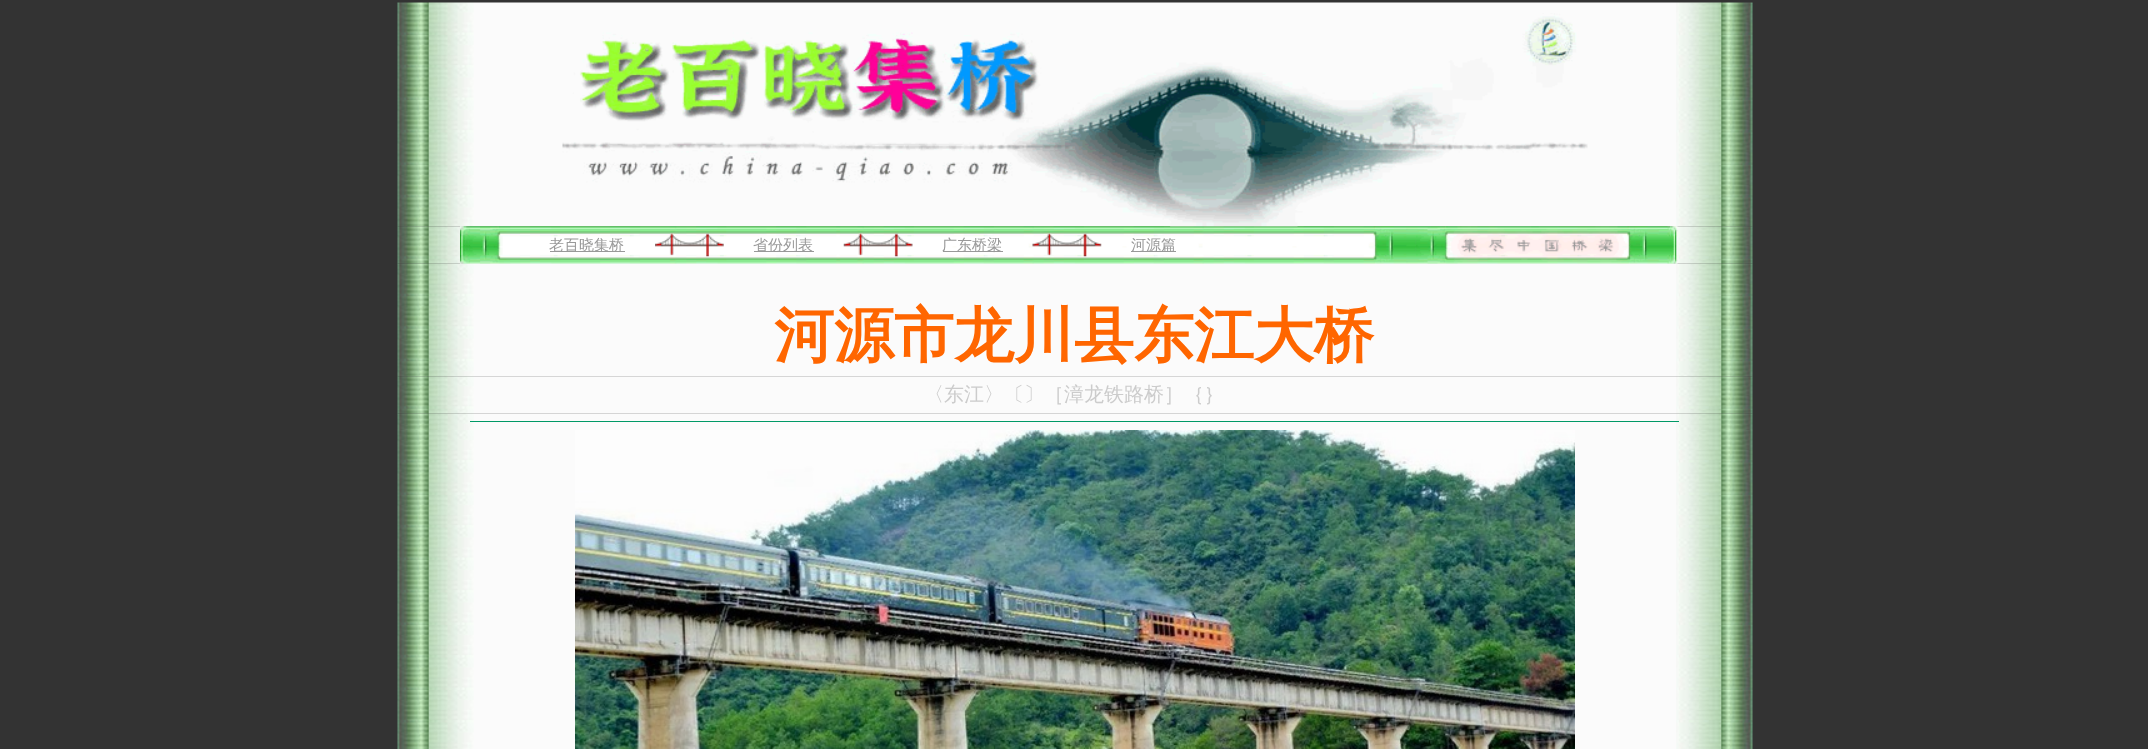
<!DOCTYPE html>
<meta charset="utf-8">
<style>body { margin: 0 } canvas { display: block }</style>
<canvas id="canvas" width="2148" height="749"></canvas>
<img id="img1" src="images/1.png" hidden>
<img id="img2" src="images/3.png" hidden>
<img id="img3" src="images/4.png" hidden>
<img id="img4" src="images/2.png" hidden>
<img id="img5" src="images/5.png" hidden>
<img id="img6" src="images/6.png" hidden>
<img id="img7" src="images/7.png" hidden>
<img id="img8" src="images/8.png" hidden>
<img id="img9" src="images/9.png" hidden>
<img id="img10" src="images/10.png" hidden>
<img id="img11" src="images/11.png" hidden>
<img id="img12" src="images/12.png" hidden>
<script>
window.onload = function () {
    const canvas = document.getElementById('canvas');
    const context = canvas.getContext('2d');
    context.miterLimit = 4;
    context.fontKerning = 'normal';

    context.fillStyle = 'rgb(51, 51, 51)';
    context.fillRect(0, 0, 2148, 749);
    context.drawImage(document.getElementById('img1'), 397, 2, 1356, 225);
    context.drawImage(document.getElementById('img2'), 397, 226, 1356, 38);
    context.drawImage(document.getElementById('img3'), 460, 226, 1218, 38);
    context.drawImage(document.getElementById('img4'), 562, 13, 1026, 214);
    context.fillStyle = 'rgb(153, 153, 153)';
    context.fillRect(550, 251, 75, 1);
    context.drawImage(document.getElementById('img5'), 655, 233, 69, 24);
    context.fillRect(754, 251, 60, 1);
    context.drawImage(document.getElementById('img6'), 843, 233, 70, 24);
    context.fillRect(943, 251, 60, 1);
    context.drawImage(document.getElementById('img7'), 1032, 233, 70, 24);
    context.fillRect(1131, 251, 45, 1);
    context.drawImage(document.getElementById('img8'), 397, 263, 1356, 114);
    context.drawImage(document.getElementById('img9'), 397, 376, 1356, 38);
    context.drawImage(document.getElementById('img10'), 397, 413, 1356, 17);
    context.fillStyle = 'rgb(0, 153, 102)';
    context.fillRect(470, 421, 1209, 1);
    context.drawImage(document.getElementById('img11'), 397, 430, 1356, 319);
    context.drawImage(document.getElementById('img12'), 575, 430, 1000, 319);
    context.font = '500 15px WenQuanYi Zen Hei';
    context.fillStyle = 'rgb(153, 153, 153)';
    context.fillText('老百晓集桥', 549, 250);
    context.fillText('省份列表', 753, 250);
    context.fillText('广东桥梁', 942, 250);
    context.fillText('河源篇', 1131, 250);
    context.font = 'bold 60px WenQuanYi Zen Hei';
    context.fillStyle = 'rgb(255, 102, 0)';
    context.fillText('河源市龙川县东江大桥', 774, 356);
    context.font = '500 20px WenQuanYi Zen Hei';
    context.fillStyle = 'rgb(204, 204, 204)';
    context.fillText('〈东江〉〔〕［漳龙铁路桥］｛｝', 924, 401);
};
</script>
